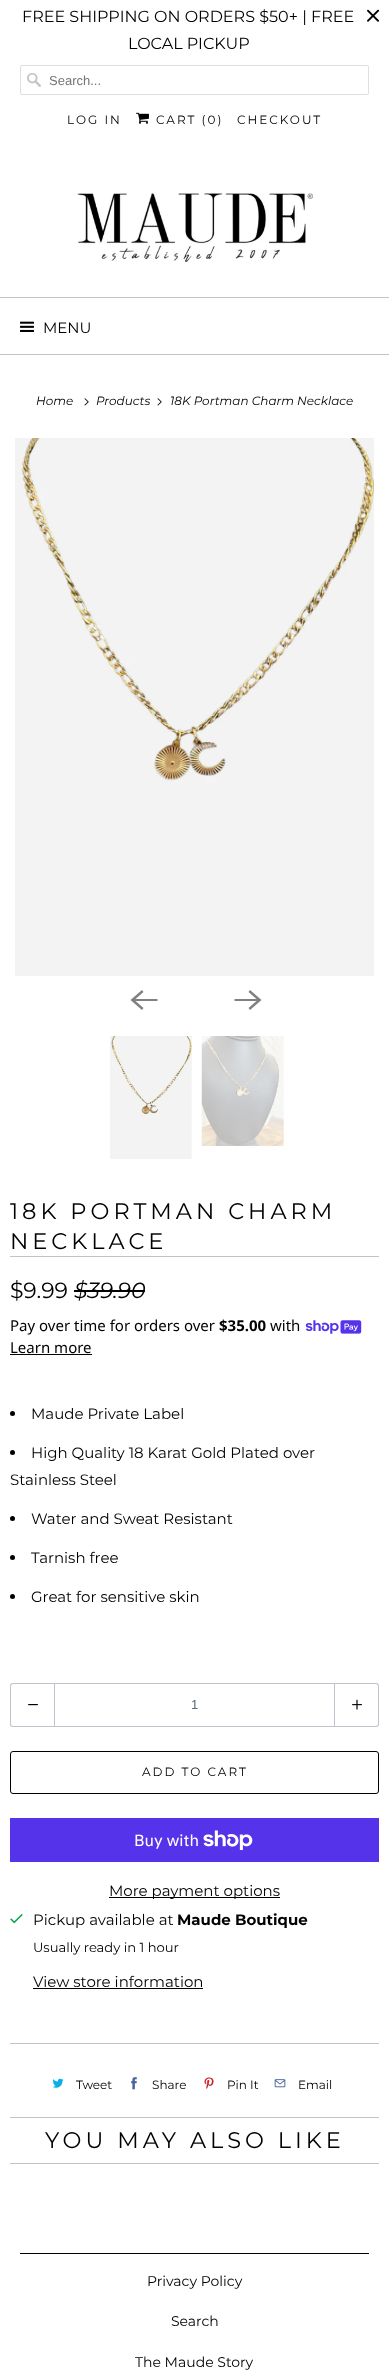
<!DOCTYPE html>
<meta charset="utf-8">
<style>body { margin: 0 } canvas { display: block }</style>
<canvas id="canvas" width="389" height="2376"></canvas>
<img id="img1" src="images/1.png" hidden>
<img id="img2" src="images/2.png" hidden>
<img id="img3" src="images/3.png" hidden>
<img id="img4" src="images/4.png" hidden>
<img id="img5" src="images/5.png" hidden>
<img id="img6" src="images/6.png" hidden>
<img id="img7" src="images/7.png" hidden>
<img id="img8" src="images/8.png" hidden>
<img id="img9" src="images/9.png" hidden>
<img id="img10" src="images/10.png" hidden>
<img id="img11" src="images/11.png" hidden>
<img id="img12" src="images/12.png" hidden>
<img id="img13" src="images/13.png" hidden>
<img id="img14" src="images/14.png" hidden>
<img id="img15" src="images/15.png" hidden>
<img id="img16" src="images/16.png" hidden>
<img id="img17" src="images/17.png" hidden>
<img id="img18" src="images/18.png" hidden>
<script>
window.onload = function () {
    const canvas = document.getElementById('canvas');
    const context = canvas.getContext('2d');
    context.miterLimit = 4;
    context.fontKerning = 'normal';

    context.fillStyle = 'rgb(255, 255, 255)';
    context.fillRect(0, 0, 389, 2376);
    context.drawImage(document.getElementById('img1'), 367, 9, 12, 13);
    context.drawImage(document.getElementById('img2'), 27, 73, 14, 14);
    context.beginPath();
    context.roundRect(20.5, 65.5, 348, 29, 1.5);
    context.strokeStyle = 'rgb(223, 223, 223)';
    context.stroke();
    context.drawImage(document.getElementById('img3'), 136, 112, 13, 12);
    context.drawImage(document.getElementById('img4'), 77, 193, 236, 69);
    context.fillStyle = 'rgb(194, 193, 204)';
    context.fillRect(0, 297, 389, 1);
    context.fillRect(0, 354, 389, 1);
    context.drawImage(document.getElementById('img5'), 20, 321, 14, 11);
    context.drawImage(document.getElementById('img6'), 84, 398, 5, 8);
    context.drawImage(document.getElementById('img6'), 157, 398, 5, 8);
    context.drawImage(document.getElementById('img7'), 15, 438, 359, 538);
    context.fillStyle = 'rgb(128, 128, 128)';
    context.beginPath();
    context.moveTo(157.5, 999);
    context.lineTo(135.5, 999);
    context.lineTo(143.5, 992);
    context.lineTo(142, 990);
    context.lineTo(130.5, 1000);
    context.lineTo(142, 1010);
    context.lineTo(143.5, 1008);
    context.lineTo(135.5, 1001);
    context.lineTo(157.5, 1001);
    context.closePath();
    context.fill();
    context.beginPath();
    context.moveTo(234.5, 1001);
    context.lineTo(256.5, 1001);
    context.lineTo(248.5, 1008);
    context.lineTo(250, 1010);
    context.lineTo(261.5, 1000);
    context.lineTo(250, 990);
    context.lineTo(248.5, 992);
    context.lineTo(256.5, 999);
    context.lineTo(234.5, 999);
    context.closePath();
    context.fill();
    context.drawImage(document.getElementById('img8'), 110, 1036, 82, 123);
    context.drawImage(document.getElementById('img9'), 201, 1036, 83, 110);
    context.fillStyle = 'rgb(194, 193, 204)';
    context.fillRect(10, 1256, 369, 1);
    context.fillStyle = 'rgb(0, 0, 0)';
    context.fillRect(74, 1290, 71, 2);
    context.drawImage(document.getElementById('img10'), 305, 1320, 57, 14);
    context.fillRect(10, 1354, 82, 1);
    context.beginPath();
    context.arc(12.5, 1413.5, 2.5, 0, 2 * Math.PI);
    context.fill();
    context.beginPath();
    context.arc(12.5, 1452.5, 2.5, 0, 2 * Math.PI);
    context.fill();
    context.beginPath();
    context.arc(12.5, 1518.5, 2.5, 0, 2 * Math.PI);
    context.fill();
    context.beginPath();
    context.arc(12.5, 1557.5, 2.5, 0, 2 * Math.PI);
    context.fill();
    context.beginPath();
    context.arc(12.5, 1596.5, 2.5, 0, 2 * Math.PI);
    context.fill();
    context.fillStyle = 'rgb(194, 193, 204)';
    context.beginPath();
    context.moveTo(13, 1683);
    context.lineTo(54, 1683);
    context.lineTo(54, 1727);
    context.lineTo(13, 1727);
    context.bezierCurveTo(11, 1727, 10, 1726, 10, 1724);
    context.lineTo(10, 1686);
    context.bezierCurveTo(10, 1684, 11, 1683, 13, 1683);
    context.closePath();
    context.moveTo(13, 1684);
    context.lineTo(54, 1684);
    context.lineTo(54, 1726);
    context.lineTo(13, 1726);
    context.bezierCurveTo(12, 1726, 11, 1725, 11, 1724);
    context.lineTo(11, 1686);
    context.bezierCurveTo(11, 1685, 12, 1684, 13, 1684);
    context.closePath();
    context.fill('evenodd');
    context.drawImage(document.getElementById('img11'), 28, 1704, 10, 2);
    context.strokeStyle = 'rgb(194, 193, 204)';
    context.strokeRect(54.5, 1683.5, 280, 43);
    context.beginPath();
    context.moveTo(335, 1683);
    context.lineTo(376, 1683);
    context.bezierCurveTo(378, 1683, 379, 1684, 379, 1686);
    context.lineTo(379, 1724);
    context.bezierCurveTo(379, 1726, 378, 1727, 376, 1727);
    context.lineTo(335, 1727);
    context.closePath();
    context.moveTo(335, 1684);
    context.lineTo(376, 1684);
    context.bezierCurveTo(377, 1684, 378, 1685, 378, 1686);
    context.lineTo(378, 1724);
    context.bezierCurveTo(378, 1725, 377, 1726, 376, 1726);
    context.lineTo(335, 1726);
    context.closePath();
    context.fill('evenodd');
    context.drawImage(document.getElementById('img12'), 352, 1699, 10, 11);
    context.beginPath();
    context.roundRect(10.5, 1751.5, 368, 42, 2.5);
    context.strokeStyle = 'rgb(0, 0, 0)';
    context.stroke();
    context.fillStyle = 'rgb(84, 51, 235)';
    context.fillRect(10, 1818, 369, 44);
    context.drawImage(document.getElementById('img13'), 203, 1830, 50, 20);
    context.fillStyle = 'rgb(0, 0, 0)';
    context.fillRect(109, 1897, 171, 1);
    context.drawImage(document.getElementById('img14'), 10, 1914, 13, 10);
    context.fillRect(33, 1988, 170, 1);
    context.fillStyle = 'rgb(194, 193, 204)';
    context.fillRect(10, 2043, 369, 1);
    context.drawImage(document.getElementById('img15'), 52, 2078, 12, 10);
    context.drawImage(document.getElementById('img16'), 131, 2077, 6, 13);
    context.drawImage(document.getElementById('img17'), 204, 2077, 10, 12);
    context.drawImage(document.getElementById('img18'), 274, 2079, 12, 9);
    context.fillRect(10, 2117, 369, 1);
    context.fillRect(10, 2163, 369, 1);
    context.fillStyle = 'rgb(0, 0, 0)';
    context.fillRect(20, 2253, 349, 1);
    context.font = '16px Montserrat';
    context.fillText('FREE SHIPPING ON ORDERS $50+ | FREE', 22, 22);
    context.fillText('LOCAL PICKUP', 128, 49);
    context.font = '13px Liberation Sans';
    context.fillStyle = 'rgb(117, 117, 117)';
    context.fillText('Search...', 49, 85);
    context.letterSpacing = '2px';
    context.font = '12px Montserrat';
    context.fillStyle = 'rgb(0, 0, 0)';
    context.fillText('LOG IN', 67, 124);
    context.fillText('CART (0)', 156, 124);
    context.fillText('CHECKOUT', 237, 124);
    context.letterSpacing = '0px';
    context.font = '15px Montserrat';
    context.fillText('MENU', 43, 333);
    context.font = 'italic 12px Montserrat';
    context.fillText('Home', 36, 405);
    context.fillText('Products', 96, 405);
    context.fillText('18K Portman Charm Necklace', 170, 405);
    context.letterSpacing = '4px';
    context.font = '22.5px Montserrat';
    context.fillText('18K PORTMAN CHARM', 10, 1219);
    context.fillText('NECKLACE', 10, 1249);
    context.letterSpacing = '0px';
    context.font = '22px Montserrat';
    context.fillText('$9.99', 10, 1298);
    context.font = 'italic 22px Montserrat';
    context.fillText('$39.90', 74, 1298);
    context.font = '15px Noto Sans';
    context.fillText('Pay over time for orders over', 10, 1331);
    context.font = 'bold 15px Noto Sans';
    context.fillText('$35.00', 219, 1331);
    context.font = '15px Noto Sans';
    context.fillText('with', 270, 1331);
    context.fillText('Learn more', 10, 1353);
    context.font = '15px Montserrat';
    context.fillText('Maude Private Label', 31, 1419);
    context.fillText('High Quality 18 Karat Gold Plated over', 31, 1458);
    context.fillText('Stainless Steel', 10, 1485);
    context.fillText('Water and Sweat Resistant', 31, 1524);
    context.fillText('Tarnish free', 31, 1563);
    context.fillText('Great for sensitive skin', 31, 1602);
    context.font = '13px Liberation Sans';
    context.fillStyle = 'rgb(95, 106, 125)';
    context.fillText('1', 191, 1709);
    context.letterSpacing = '2px';
    context.font = '12px Montserrat';
    context.fillStyle = 'rgb(0, 0, 0)';
    context.fillText('ADD TO CART', 142, 1776);
    context.letterSpacing = '0px';
    context.font = '16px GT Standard';
    context.fillStyle = 'rgb(255, 255, 255)';
    context.fillText('Buy with', 134, 1846);
    context.font = '15px Montserrat';
    context.fillStyle = 'rgb(0, 0, 0)';
    context.fillText('More payment options', 109, 1896);
    context.fillText('Pickup available at', 33, 1925);
    context.font = 'bold 15px Montserrat';
    context.fillText('Maude Boutique', 177, 1925);
    context.font = '13.1px Montserrat';
    context.fillText('Usually ready in 1 hour', 33, 1952);
    context.font = '15px Montserrat';
    context.fillText('View store information', 33, 1987);
    context.font = '12px Montserrat';
    context.fillText('Tweet', 76, 2089);
    context.fillText('Share', 152, 2089);
    context.fillText('Pin It', 227, 2089);
    context.fillText('Email', 298, 2089);
    context.letterSpacing = '4px';
    context.font = '22.5px Montserrat';
    context.fillText('YOU MAY ALSO LIKE', 45, 2148);
    context.letterSpacing = '0px';
    context.font = '14px Montserrat';
    context.fillText('Privacy Policy', 147, 2286);
    context.fillText('Search', 171, 2326);
    context.fillText('The Maude Story', 135, 2367);
};
</script>
